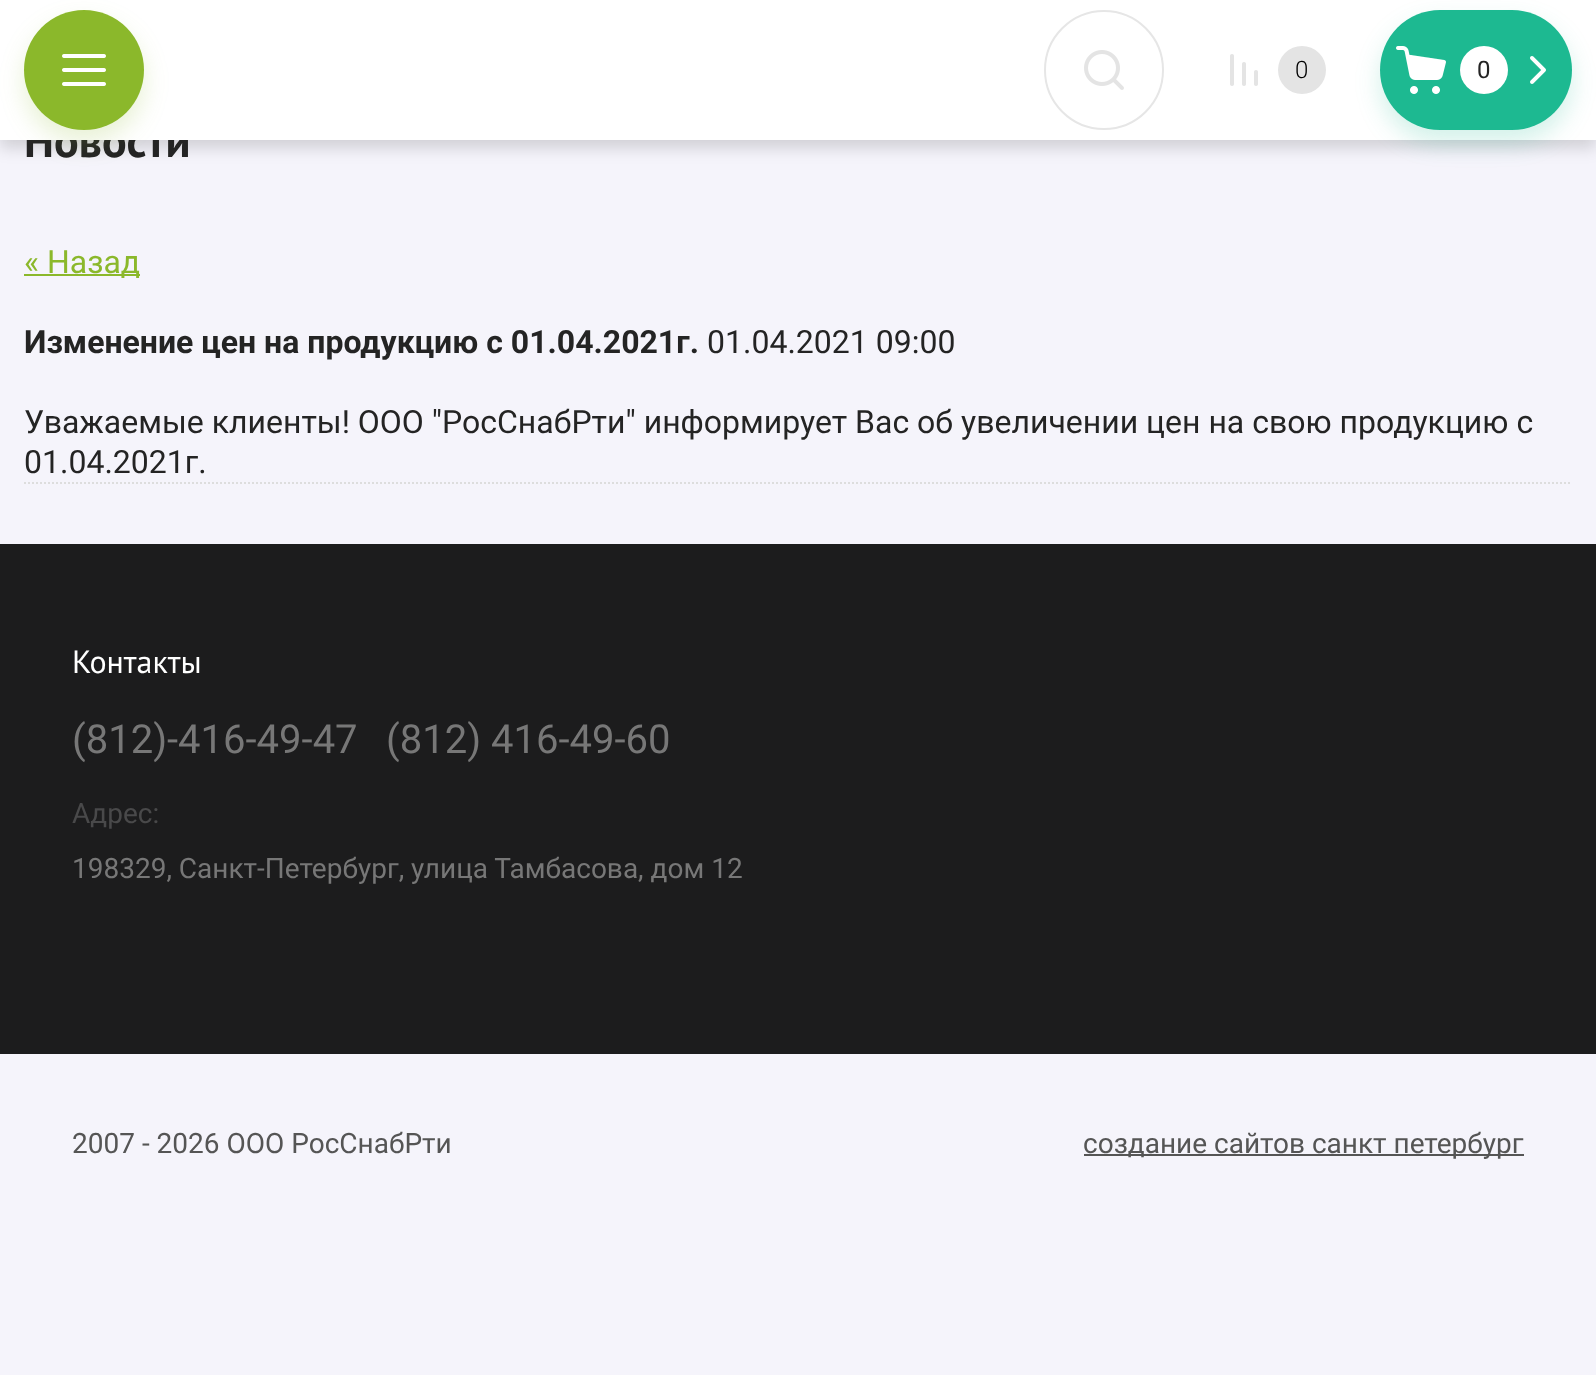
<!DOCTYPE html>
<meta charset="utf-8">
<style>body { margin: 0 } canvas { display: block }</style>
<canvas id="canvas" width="1596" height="1375"></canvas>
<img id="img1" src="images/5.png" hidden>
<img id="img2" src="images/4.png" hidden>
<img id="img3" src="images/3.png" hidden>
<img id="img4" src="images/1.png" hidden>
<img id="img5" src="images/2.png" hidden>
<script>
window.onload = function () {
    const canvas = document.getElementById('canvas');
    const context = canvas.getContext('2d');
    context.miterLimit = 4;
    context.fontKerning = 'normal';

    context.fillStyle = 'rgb(245, 244, 251)';
    context.fillRect(0, 0, 1596, 1375);
    context.fillStyle = 'rgba(0, 0, 0, 0.15)';
    context.filter = 'blur(8px)';
    context.beginPath();
    context.rect(0, 8, 1596, 140);
    context.fill();
    context.filter = 'none';
    context.fillStyle = 'rgb(139, 184, 43)';
    context.fillRect(24, 274, 116, 2);
    context.beginPath();
    context.moveTo(24, 483);
    context.lineTo(1572, 483);
    context.strokeStyle = 'rgb(221, 221, 221)';
    context.lineWidth = 2;
    context.setLineDash([2, 2]);
    context.stroke();
    context.fillStyle = 'rgb(28, 28, 29)';
    context.fillRect(0, 544, 1596, 510);
    context.fillStyle = 'rgb(85, 85, 85)';
    context.fillRect(1084, 1154, 440, 2);
    context.font = 'bold 46px PT Sans';
    context.fillStyle = 'rgb(36, 36, 36)';
    context.fillText('Новости', 24, 157);
    context.fillStyle = 'rgb(255, 255, 255)';
    context.fillRect(0, 0, 1596, 140);
    context.fillStyle = 'rgba(29, 185, 145, 0.2)';
    context.filter = 'blur(12px)';
    context.beginPath();
    context.roundRect(1380, 22, 192, 120, 60);
    context.fill();
    context.filter = 'none';
    context.fillStyle = 'rgb(29, 185, 145)';
    context.beginPath();
    context.roundRect(1380, 10, 192, 120, 60);
    context.fill();
    context.fillStyle = 'rgb(255, 255, 255)';
    context.beginPath();
    context.arc(1484, 70, 24, 0, 2 * Math.PI);
    context.fill();
    context.font = '24px Roboto';
    context.fillStyle = 'rgb(36, 36, 36)';
    context.fillText('0', 1477, 78);
    context.drawImage(document.getElementById('img1'), 1530, 56, 16, 28);
    context.drawImage(document.getElementById('img2'), 1396, 46, 50, 48);
    context.fillStyle = 'rgb(228, 228, 228)';
    context.beginPath();
    context.arc(1302, 70, 24, 0, 2 * Math.PI);
    context.fill();
    context.font = '300 24px Roboto';
    context.fillStyle = 'rgb(0, 0, 0)';
    context.fillText('0', 1295, 78);
    context.drawImage(document.getElementById('img3'), 1230, 54, 28, 32);
    context.fillStyle = 'rgba(139, 184, 43, 0.2)';
    context.filter = 'blur(12px)';
    context.beginPath();
    context.roundRect(24, 22, 120, 120, 60);
    context.fill();
    context.filter = 'none';
    context.fillStyle = 'rgb(139, 184, 43)';
    context.beginPath();
    context.arc(84, 70, 60, 0, 2 * Math.PI);
    context.fill();
    context.drawImage(document.getElementById('img4'), 62, 54, 44, 32);
    context.beginPath();
    context.arc(1104, 70, 59, 0, 2 * Math.PI);
    context.strokeStyle = 'rgb(230, 230, 230)';
    context.setLineDash([]);
    context.stroke();
    context.drawImage(document.getElementById('img5'), 1084, 50, 40, 40);
    context.font = '32px Roboto';
    context.fillText('« Назад', 24, 273);
    context.font = 'bold 32px Roboto';
    context.fillStyle = 'rgb(36, 36, 36)';
    context.fillText('Изменение цен на продукцию с 01.04.2021г.', 24, 353);
    context.font = '32px Roboto';
    context.fillText('01.04.2021 09:00', 707, 353);
    context.fillText('Уважаемые клиенты! ООО "РосСнабРти" информирует Вас об увеличении цен на свою продукцию с', 24, 433);
    context.fillText('01.04.2021г.', 24, 473);
    context.font = '32px PT Sans';
    context.fillStyle = 'rgb(255, 255, 255)';
    context.fillText('Контакты', 72, 673);
    context.font = '40px Roboto';
    context.fillStyle = 'rgb(119, 119, 119)';
    context.fillText('(812)-416-49-47', 72, 753);
    context.fillText('(812) 416-49-60', 386, 753);
    context.font = '28px Roboto';
    context.fillStyle = 'rgb(73, 73, 74)';
    context.fillText('Адрес:', 72, 823);
    context.fillStyle = 'rgb(119, 119, 119)';
    context.fillText('198329, Санкт-Петербург, улица Тамбасова, дом 12', 72, 878);
    context.fillStyle = 'rgb(85, 85, 85)';
    context.fillText('2007 - 2026 ООО РосСнабРти', 72, 1153);
    context.fillText('создание сайтов санкт петербург', 1083, 1153);
};
</script>
